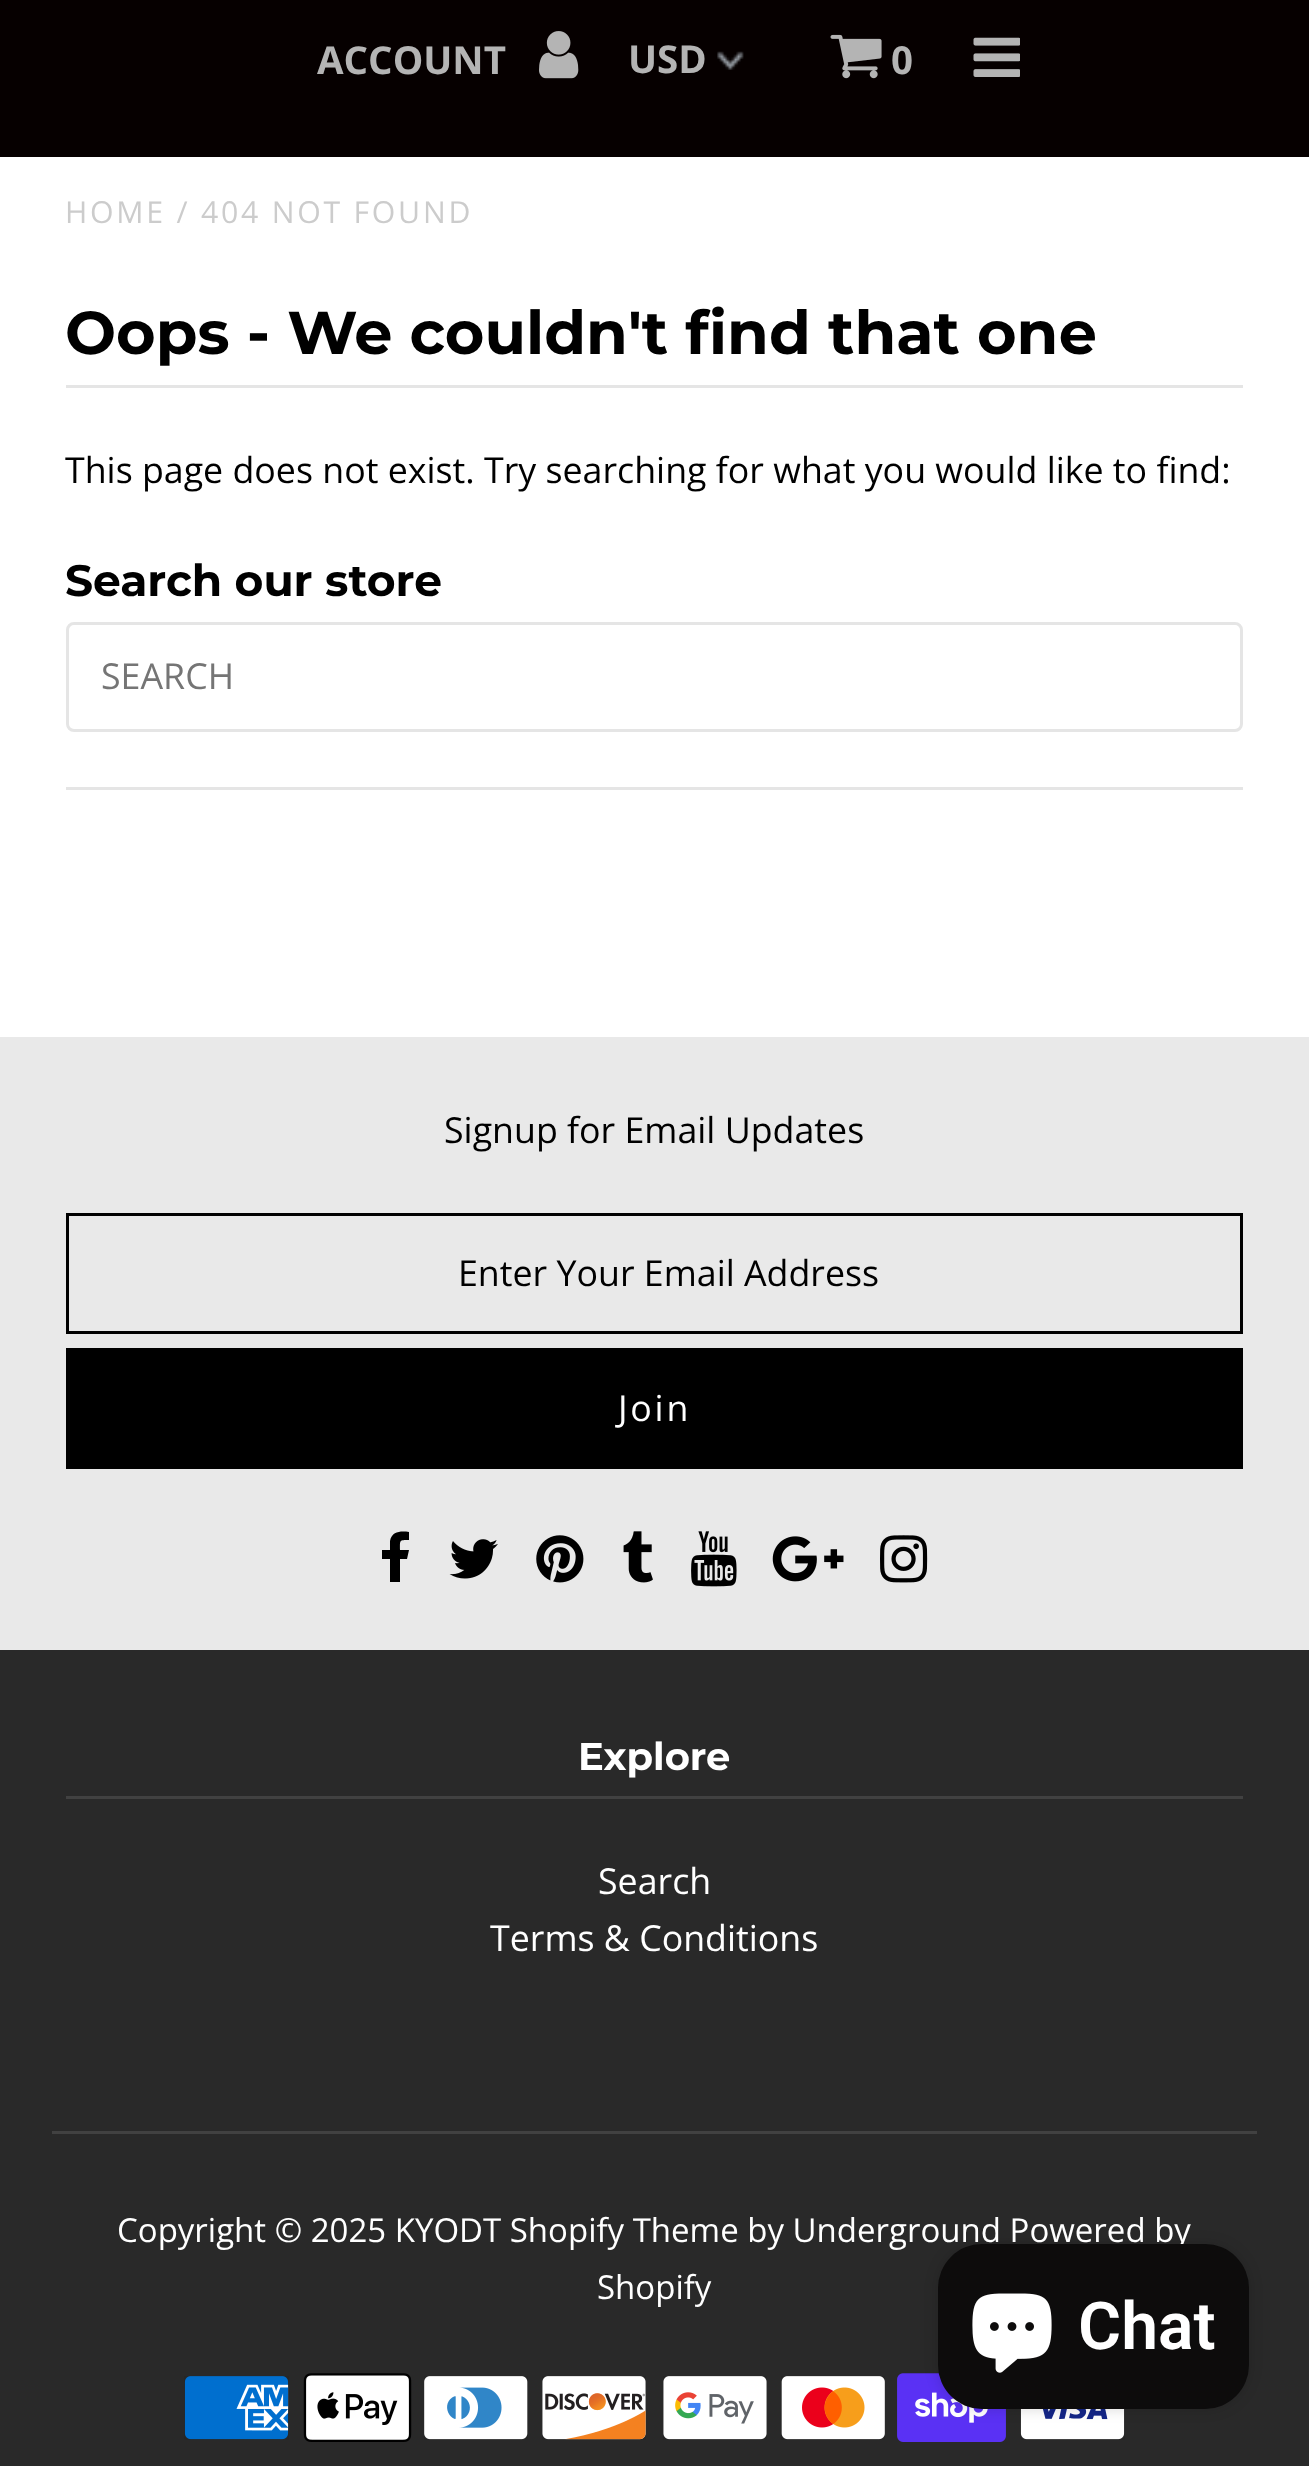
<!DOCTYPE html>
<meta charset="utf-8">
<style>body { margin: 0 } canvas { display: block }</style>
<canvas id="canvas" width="1309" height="2466"></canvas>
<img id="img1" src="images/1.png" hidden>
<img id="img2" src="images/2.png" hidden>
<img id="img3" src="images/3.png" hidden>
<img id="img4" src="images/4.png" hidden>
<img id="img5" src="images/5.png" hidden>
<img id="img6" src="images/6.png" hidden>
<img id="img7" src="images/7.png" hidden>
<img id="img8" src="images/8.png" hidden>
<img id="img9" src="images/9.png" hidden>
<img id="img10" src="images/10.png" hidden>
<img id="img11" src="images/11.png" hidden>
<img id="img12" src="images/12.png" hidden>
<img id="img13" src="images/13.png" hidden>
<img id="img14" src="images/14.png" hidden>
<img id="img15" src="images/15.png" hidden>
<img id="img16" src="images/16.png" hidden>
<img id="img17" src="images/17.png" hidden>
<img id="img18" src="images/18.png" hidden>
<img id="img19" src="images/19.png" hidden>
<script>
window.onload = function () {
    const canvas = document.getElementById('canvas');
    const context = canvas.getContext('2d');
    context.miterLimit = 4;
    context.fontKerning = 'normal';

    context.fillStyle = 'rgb(255, 255, 255)';
    context.fillRect(0, 0, 1309, 2466);
    context.fillStyle = 'rgb(6, 0, 0)';
    context.fillRect(0, 0, 1309, 157);
    context.drawImage(document.getElementById('img1'), 539, 31, 40, 48);
    context.drawImage(document.getElementById('img2'), 717, 51, 27, 19);
    context.drawImage(document.getElementById('img3'), 830, 34, 52, 45);
    context.drawImage(document.getElementById('img4'), 973, 37, 47, 40);
    context.fillStyle = 'rgb(229, 229, 229)';
    context.fillRect(66, 385, 1177, 3);
    context.fillRect(66, 787, 1177, 3);
    context.beginPath();
    context.roundRect(67.5, 623.5, 1174, 107, 6.5);
    context.strokeStyle = 'rgb(229, 229, 229)';
    context.lineWidth = 3;
    context.stroke();
    context.fillStyle = 'rgb(233, 233, 233)';
    context.fillRect(0, 1037, 1309, 613);
    context.strokeStyle = 'rgb(0, 0, 0)';
    context.strokeRect(67.5, 1214.5, 1174, 118);
    context.fillStyle = 'rgb(0, 0, 0)';
    context.fillRect(66, 1348, 1177, 121);
    context.beginPath();
    context.moveTo(409, 1532);
    context.lineTo(409, 1540);
    context.bezierCurveTo(399, 1540, 400, 1540, 400, 1550);
    context.lineTo(409, 1550);
    context.lineTo(407, 1559);
    context.lineTo(400, 1559);
    context.lineTo(400, 1582);
    context.lineTo(390, 1582);
    context.lineTo(390, 1559);
    context.lineTo(382, 1559);
    context.lineTo(382, 1550);
    context.lineTo(390, 1550);
    context.lineTo(390, 1541);
    context.bezierCurveTo(392, 1531, 401, 1531, 409, 1532);
    context.closePath();
    context.fill();
    context.drawImage(document.getElementById('img5'), 449, 1539, 49, 40);
    context.drawImage(document.getElementById('img6'), 536, 1535, 48, 48);
    context.drawImage(document.getElementById('img7'), 623, 1531, 30, 52);
    context.drawImage(document.getElementById('img8'), 691, 1531, 46, 56);
    context.drawImage(document.getElementById('img9'), 772, 1536, 72, 46);
    context.drawImage(document.getElementById('img10'), 880, 1535, 48, 48);
    context.fillStyle = 'rgb(41, 41, 41)';
    context.fillRect(0, 1650, 1309, 816);
    context.fillStyle = 'rgb(65, 65, 65)';
    context.fillRect(66, 1796, 1177, 3);
    context.fillRect(52, 2131, 1205, 3);
    context.drawImage(document.getElementById('img11'), 184, 2376, 105, 64);
    context.drawImage(document.getElementById('img12'), 303, 2373, 109, 69);
    context.drawImage(document.getElementById('img13'), 424, 2376, 104, 64);
    context.drawImage(document.getElementById('img14'), 542, 2376, 104, 64);
    context.drawImage(document.getElementById('img15'), 663, 2376, 104, 64);
    context.drawImage(document.getElementById('img16'), 781, 2376, 104, 64);
    context.drawImage(document.getElementById('img17'), 897, 2373, 109, 69);
    context.drawImage(document.getElementById('img18'), 1020, 2409, 105, 31);
    context.fillStyle = 'rgba(0, 0, 0, 0.15)';
    context.filter = 'blur(7px)';
    context.beginPath();
    context.roundRect(938, 2244, 311, 165, 44);
    context.fill();
    context.filter = 'none';
    context.font = 'bold 38.5px Open Sans';
    context.fillStyle = 'rgb(180, 180, 180)';
    context.fillText('ACCOUNT', 317, 74);
    context.fillText('USD', 628, 73);
    context.fillText('0', 891, 74);
    context.letterSpacing = '2.75px';
    context.font = '30.25px Open Sans';
    context.fillStyle = 'rgb(204, 204, 204)';
    context.fillText('HOME / 404 NOT FOUND', 65, 223);
    context.letterSpacing = '0px';
    context.font = 'bold 60.5px Montserrat';
    context.fillStyle = 'rgb(0, 0, 0)';
    context.fillText('Oops - We couldn\'t find that one', 65, 354);
    context.font = '35.75px Open Sans';
    context.fillText('This page does not exist. Try searching for what you would like to find:', 65, 483);
    context.font = 'bold 44px Montserrat';
    context.fillText('Search our store', 65, 596);
    context.font = '35.75px Open Sans';
    context.fillStyle = 'rgb(117, 117, 117)';
    context.fillText('SEARCH', 101, 689);
    context.fillStyle = 'rgb(0, 0, 0)';
    context.fillText('Signup for Email Updates', 444, 1143);
    context.fillText('Enter Your Email Address', 458, 1286);
    context.letterSpacing = '2.75px';
    context.fillStyle = 'rgb(255, 255, 255)';
    context.fillText('Join', 618, 1421);
    context.letterSpacing = '0px';
    context.font = 'bold 38.5px Montserrat';
    context.fillText('Explore', 578, 1770);
    context.font = '35.75px Open Sans';
    context.fillText('Search', 598, 1894);
    context.fillText('Terms & Conditions', 490, 1951);
    context.font = '33px Open Sans';
    context.fillText('Copyright © 2025 KYODT Shopify Theme by Underground Powered by', 117, 2242);
    context.fillText('Shopify', 597, 2299);
    context.fillStyle = 'rgb(13, 12, 12)';
    context.beginPath();
    context.roundRect(938, 2244, 311, 165, 44);
    context.fill();
    context.drawImage(document.getElementById('img19'), 972, 2293, 80, 80);
    context.font = '600 66px Roboto';
    context.fillStyle = 'rgb(255, 255, 255)';
    context.fillText('Chat', 1078, 2349);
};
</script>
